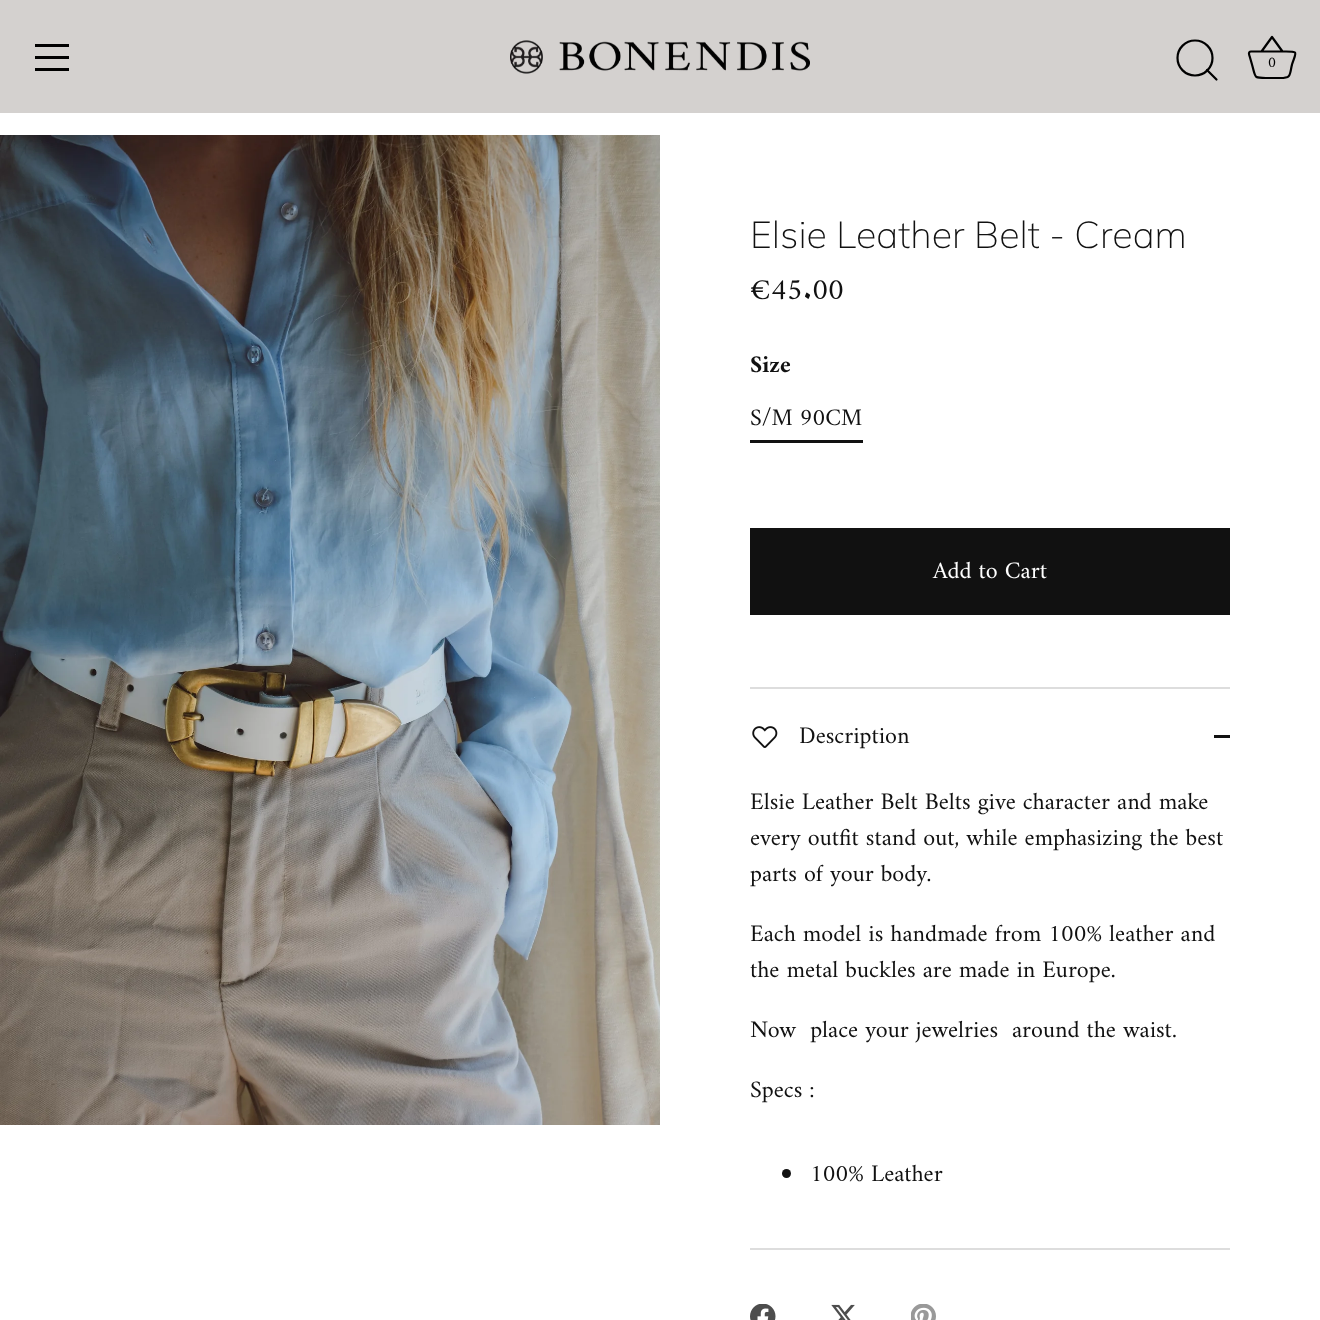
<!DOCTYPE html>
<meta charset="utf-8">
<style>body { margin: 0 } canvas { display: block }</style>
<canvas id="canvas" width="1320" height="1320"></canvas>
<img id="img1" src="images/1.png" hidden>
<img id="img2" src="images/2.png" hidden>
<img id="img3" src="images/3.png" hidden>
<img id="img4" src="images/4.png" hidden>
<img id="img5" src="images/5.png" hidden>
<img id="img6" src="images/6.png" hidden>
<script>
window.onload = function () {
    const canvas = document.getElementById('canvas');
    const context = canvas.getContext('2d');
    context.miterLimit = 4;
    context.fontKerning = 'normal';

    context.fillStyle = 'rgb(255, 255, 255)';
    context.fillRect(0, 0, 1320, 1320);
    context.fillStyle = 'rgb(212, 209, 207)';
    context.fillRect(0, 0, 1320, 113);
    context.fillStyle = 'rgb(0, 0, 0)';
    context.fillRect(35, 44, 34, 3);
    context.fillRect(35, 56, 34, 3);
    context.fillRect(35, 68, 34, 3);
    context.drawImage(document.getElementById('img1'), 510, 40, 300, 34);
    context.beginPath();
    context.arc(1195, 58, 17.5, 0, 2 * Math.PI);
    context.strokeStyle = 'rgb(0, 0, 0)';
    context.lineWidth = 2.2;
    context.stroke();
    context.beginPath();
    context.moveTo(1216.5, 79.5);
    context.lineTo(1207, 70);
    context.lineCap = 'round';
    context.lineJoin = 'round';
    context.stroke();
    context.beginPath();
    context.moveTo(1251, 51.5);
    context.bezierCurveTo(1247.5, 51.5, 1249.5, 56, 1250, 57.5);
    context.lineTo(1252, 64.5);
    context.bezierCurveTo(1256, 78.5, 1253, 78, 1267.5, 78);
    context.lineTo(1280.5, 78);
    context.bezierCurveTo(1291.5, 78, 1289.5, 75, 1292, 64.5);
    context.bezierCurveTo(1296, 52, 1299, 51.5, 1286, 51.5);
    context.lineTo(1251, 51.5);
    context.moveTo(1261.5, 51.5);
    context.lineTo(1272, 37);
    context.lineTo(1282.5, 51.5);
    context.lineCap = 'butt';
    context.stroke();
    context.drawImage(document.getElementById('img2'), 0, 135, 660, 990);
    context.fillStyle = 'rgb(17, 17, 17)';
    context.fillRect(750, 440, 113, 3);
    context.fillRect(750, 528, 480, 87);
    context.fillStyle = 'rgb(221, 221, 221)';
    context.fillRect(750, 687, 480, 2);
    context.fillRect(750, 1248, 480, 2);
    context.drawImage(document.getElementById('img3'), 752, 726, 26, 22);
    context.fillStyle = 'rgb(17, 17, 17)';
    context.fillRect(1214, 735, 16, 3);
    context.beginPath();
    context.arc(786.5, 1173.5, 4.5, 0, 2 * Math.PI);
    context.fill();
    context.drawImage(document.getElementById('img4'), 750, 1304, 26, 16);
    context.drawImage(document.getElementById('img5'), 831, 1304, 24, 16);
    context.drawImage(document.getElementById('img6'), 911, 1304, 25, 16);
    context.font = '15px Amiri';
    context.fillStyle = 'rgb(0, 0, 0)';
    context.fillText('0', 1268, 67);
    context.font = '200 37.5px Muli';
    context.fillStyle = 'rgb(17, 17, 17)';
    context.fillText('Elsie Leather Belt - Cream', 750, 248);
    context.font = '30px Amiri';
    context.fillText('€45.00', 750, 299);
    context.font = 'bold 24px Amiri';
    context.fillText('Size', 750, 372);
    context.font = '24px Amiri';
    context.fillText('S/M 90CM', 750, 425);
    context.fillStyle = 'rgb(255, 255, 255)';
    context.fillText('Add to Cart', 933, 578);
    context.fillStyle = 'rgb(17, 17, 17)';
    context.fillText('Description', 799, 743);
    context.fillText('Elsie Leather Belt Belts give character and make', 750, 809);
    context.fillText('every outfit stand out, while emphasizing the best', 750, 845);
    context.fillText('parts of your body.', 750, 881);
    context.fillText('Each model is handmade from 100% leather and', 750, 941);
    context.fillText('the metal buckles are made in Europe.', 750, 977);
    context.fillText('Now  place your jewelries  around the waist.', 750, 1037);
    context.fillText('Specs :', 750, 1097);
    context.fillText('100% Leather', 810, 1181);
};
</script>
